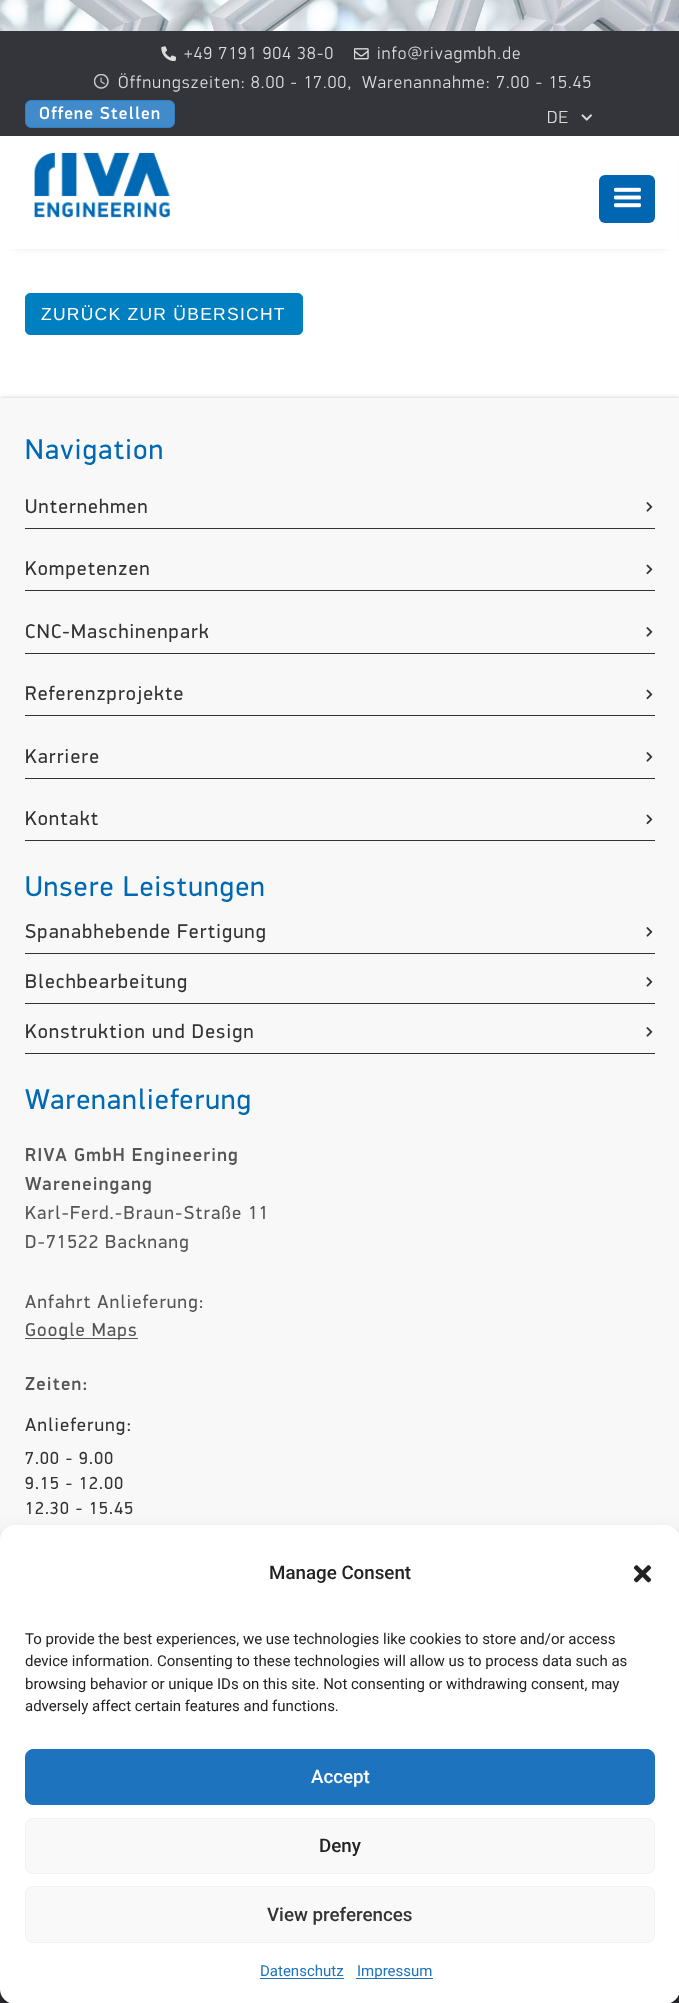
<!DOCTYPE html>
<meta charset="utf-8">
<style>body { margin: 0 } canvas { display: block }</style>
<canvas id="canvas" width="679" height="2003"></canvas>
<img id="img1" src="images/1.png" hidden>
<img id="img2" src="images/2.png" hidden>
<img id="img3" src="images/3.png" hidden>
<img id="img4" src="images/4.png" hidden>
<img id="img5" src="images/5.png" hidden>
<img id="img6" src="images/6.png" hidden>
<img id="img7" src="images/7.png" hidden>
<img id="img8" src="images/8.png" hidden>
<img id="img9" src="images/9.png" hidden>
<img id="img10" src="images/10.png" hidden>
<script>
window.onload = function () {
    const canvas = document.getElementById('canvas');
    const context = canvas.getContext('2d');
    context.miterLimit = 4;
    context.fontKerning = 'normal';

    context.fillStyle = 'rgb(255, 255, 255)';
    context.fillRect(0, 0, 679, 2003);
    context.drawImage(document.getElementById('img1'), 0, 0, 679, 31);
    context.fillStyle = 'rgb(51, 53, 58)';
    context.fillRect(0, 31, 679, 105);
    context.drawImage(document.getElementById('img2'), 161, 46, 15, 15);
    context.drawImage(document.getElementById('img3'), 354, 48, 15, 12);
    context.drawImage(document.getElementById('img4'), 94, 74, 15, 15);
    context.fillStyle = 'rgb(66, 139, 202)';
    context.beginPath();
    context.roundRect(25.5, 100.5, 149, 27, 5.5);
    context.fill();
    context.strokeStyle = 'rgb(53, 126, 189)';
    context.stroke();
    context.drawImage(document.getElementById('img5'), 581, 114, 11, 7);
    context.fillStyle = 'rgba(0, 0, 0, 0.5)';
    context.filter = 'blur(5px)';
    context.beginPath();
    context.rect(13, 155, 655, 88);
    context.fill();
    context.filter = 'none';
    context.fillStyle = 'rgb(255, 255, 255)';
    context.fillRect(3, 145, 675, 104);
    context.drawImage(document.getElementById('img6'), 34, 152, 136, 66);
    context.fillStyle = 'rgb(0, 102, 178)';
    context.beginPath();
    context.roundRect(599, 175, 56, 48, 6);
    context.fill();
    context.drawImage(document.getElementById('img7'), 614, 187, 27, 21);
    context.fillStyle = 'rgb(0, 127, 192)';
    context.beginPath();
    context.roundRect(25.5, 293.5, 277, 41, 4.5);
    context.fill();
    context.strokeStyle = 'rgb(0, 127, 192)';
    context.stroke();
    context.fillStyle = 'rgba(0, 0, 0, 0.2)';
    context.filter = 'blur(2.5px)';
    context.beginPath();
    context.rect(0, 398, 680, 1512);
    context.fill();
    context.filter = 'none';
    context.fillStyle = 'rgb(248, 248, 248)';
    context.fillRect(0, 398, 679, 1142);
    context.fillStyle = 'rgb(51, 51, 51)';
    context.fillRect(25, 528, 630, 1);
    context.drawImage(document.getElementById('img8'), 646, 502, 7, 10);
    context.fillRect(25, 590, 630, 1);
    context.drawImage(document.getElementById('img9'), 646, 564, 7, 11);
    context.fillRect(25, 653, 630, 1);
    context.drawImage(document.getElementById('img8'), 646, 627, 7, 10);
    context.fillRect(25, 715, 630, 1);
    context.drawImage(document.getElementById('img9'), 646, 689, 7, 11);
    context.fillRect(25, 778, 630, 1);
    context.drawImage(document.getElementById('img8'), 646, 752, 7, 10);
    context.fillRect(25, 840, 630, 1);
    context.drawImage(document.getElementById('img9'), 646, 814, 7, 11);
    context.fillRect(25, 953, 630, 1);
    context.drawImage(document.getElementById('img8'), 646, 927, 7, 10);
    context.fillRect(25, 1003, 630, 1);
    context.drawImage(document.getElementById('img8'), 646, 977, 7, 10);
    context.fillRect(25, 1053, 630, 1);
    context.drawImage(document.getElementById('img8'), 646, 1027, 7, 10);
    context.fillStyle = 'rgb(85, 85, 85)';
    context.fillRect(25, 1338, 113, 1);
    context.fillStyle = 'rgb(48, 49, 53)';
    context.fillRect(0, 1989, 679, 14);
    context.fillStyle = 'rgba(0, 0, 0, 0.23)';
    context.filter = 'blur(4px)';
    context.beginPath();
    context.roundRect(0, 1533, 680, 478, 15);
    context.fill();
    context.filter = 'none';
    context.fillStyle = 'rgba(0, 0, 0, 0.19)';
    context.filter = 'blur(12.5px)';
    context.beginPath();
    context.roundRect(0, 1538, 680, 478, 15);
    context.fill();
    context.filter = 'none';
    context.fillStyle = 'rgb(255, 255, 255)';
    context.beginPath();
    context.roundRect(0, 1525, 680, 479, 15);
    context.fill();
    context.drawImage(document.getElementById('img10'), 633, 1565, 19, 18);
    context.fillStyle = 'rgb(30, 115, 190)';
    context.beginPath();
    context.roundRect(25.5, 1749.5, 629, 55, 7.5);
    context.fill();
    context.strokeStyle = 'rgb(30, 115, 190)';
    context.stroke();
    context.fillStyle = 'rgb(249, 249, 249)';
    context.beginPath();
    context.roundRect(25.5, 1818.5, 629, 55, 7.5);
    context.fill();
    context.strokeStyle = 'rgb(242, 242, 242)';
    context.stroke();
    context.beginPath();
    context.roundRect(25.5, 1886.5, 629, 56, 7.5);
    context.fill();
    context.stroke();
    context.fillStyle = 'rgb(30, 115, 190)';
    context.fillRect(260, 1978, 84, 1);
    context.fillRect(356, 1978, 77, 1);
    context.letterSpacing = '1.25px';
    context.font = '300 17.5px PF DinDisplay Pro';
    context.fillStyle = 'rgb(220, 220, 220)';
    context.fillText('+49 7191 904 38-0', 184, 59);
    context.fillText('info@rivagmbh.de', 377, 59);
    context.fillText('Öffnungszeiten: 8.00 - 17.00,', 118, 88);
    context.fillText('Warenannahme: 7.00 - 15.45', 362, 88);
    context.font = '500 17.5px PF DinDisplay Pro';
    context.fillStyle = 'rgb(255, 255, 255)';
    context.fillText('Offene Stellen', 39, 119);
    context.font = '300 17.5px PF DinDisplay Pro';
    context.fillStyle = 'rgb(220, 220, 220)';
    context.fillText('DE', 547, 123);
    context.font = '17.5px Liberation Sans';
    context.fillStyle = 'rgb(255, 255, 255)';
    context.fillText('ZURÜCK ZUR ÜBERSICHT', 41, 320);
    context.font = '28.75px PF DinDisplay Pro';
    context.fillStyle = 'rgb(0, 105, 180)';
    context.fillText('Navigation', 25, 459);
    context.font = '20px PF DinDisplay Pro';
    context.fillStyle = 'rgb(51, 51, 51)';
    context.fillText('Unternehmen', 25, 513);
    context.fillText('Kompetenzen', 25, 575);
    context.fillText('CNC-Maschinenpark', 25, 638);
    context.fillText('Referenzprojekte', 25, 700);
    context.fillText('Karriere', 25, 763);
    context.fillText('Kontakt', 25, 825);
    context.font = '28.75px PF DinDisplay Pro';
    context.fillStyle = 'rgb(0, 105, 180)';
    context.fillText('Unsere Leistungen', 25, 896);
    context.font = '20px PF DinDisplay Pro';
    context.fillStyle = 'rgb(51, 51, 51)';
    context.fillText('Spanabhebende Fertigung', 25, 938);
    context.fillText('Blechbearbeitung', 25, 988);
    context.fillText('Konstruktion und Design', 25, 1038);
    context.font = '28.75px PF DinDisplay Pro';
    context.fillStyle = 'rgb(0, 105, 180)';
    context.fillText('Warenanlieferung', 25, 1109);
    context.font = '500 18.75px PF DinDisplay Pro';
    context.fillStyle = 'rgb(85, 85, 85)';
    context.fillText('RIVA GmbH Engineering', 25, 1161);
    context.fillText('Wareneingang', 25, 1190);
    context.font = '18.75px PF DinDisplay Pro';
    context.fillText('Karl-Ferd.-Braun-Straße 11', 25, 1219);
    context.fillText('D-71522 Backnang', 25, 1248);
    context.fillText('Anfahrt Anlieferung:', 25, 1308);
    context.fillText('Google Maps', 25, 1336);
    context.font = '500 18.75px PF DinDisplay Pro';
    context.fillText('Zeiten:', 25, 1390);
    context.font = '18.75px PF DinDisplay Pro';
    context.fillStyle = 'rgb(51, 51, 51)';
    context.fillText('Anlieferung:', 25, 1431);
    context.font = '17.5px PF DinDisplay Pro';
    context.fillText('7.00 - 9.00', 25, 1464);
    context.fillText('9.15 - 12.00', 25, 1489);
    context.fillText('12.30 - 15.45', 25, 1514);
    context.letterSpacing = '0px';
    context.font = '500 18.75px Roboto';
    context.fillStyle = 'rgb(34, 34, 34)';
    context.fillText('Manage Consent', 269, 1579);
    context.font = '15px Roboto';
    context.fillText('To provide the best experiences, we use technologies like cookies to store and/or access', 25, 1644);
    context.fillText('device information. Consenting to these technologies will allow us to process data such as', 25, 1666);
    context.fillText('browsing behavior or unique IDs on this site. Not consenting or withdrawing consent, may', 25, 1689);
    context.fillText('adversely affect certain features and functions.', 25, 1711);
    context.font = '500 18.75px Roboto';
    context.fillStyle = 'rgb(255, 255, 255)';
    context.fillText('Accept', 311, 1783);
    context.fillStyle = 'rgb(34, 34, 34)';
    context.fillText('Deny', 319, 1852);
    context.fillStyle = 'rgb(51, 51, 51)';
    context.fillText('View preferences', 267, 1921);
    context.font = '15px Roboto';
    context.fillStyle = 'rgb(30, 115, 190)';
    context.fillText('Datenschutz', 260, 1976);
    context.fillText('Impressum', 357, 1976);
};
</script>
